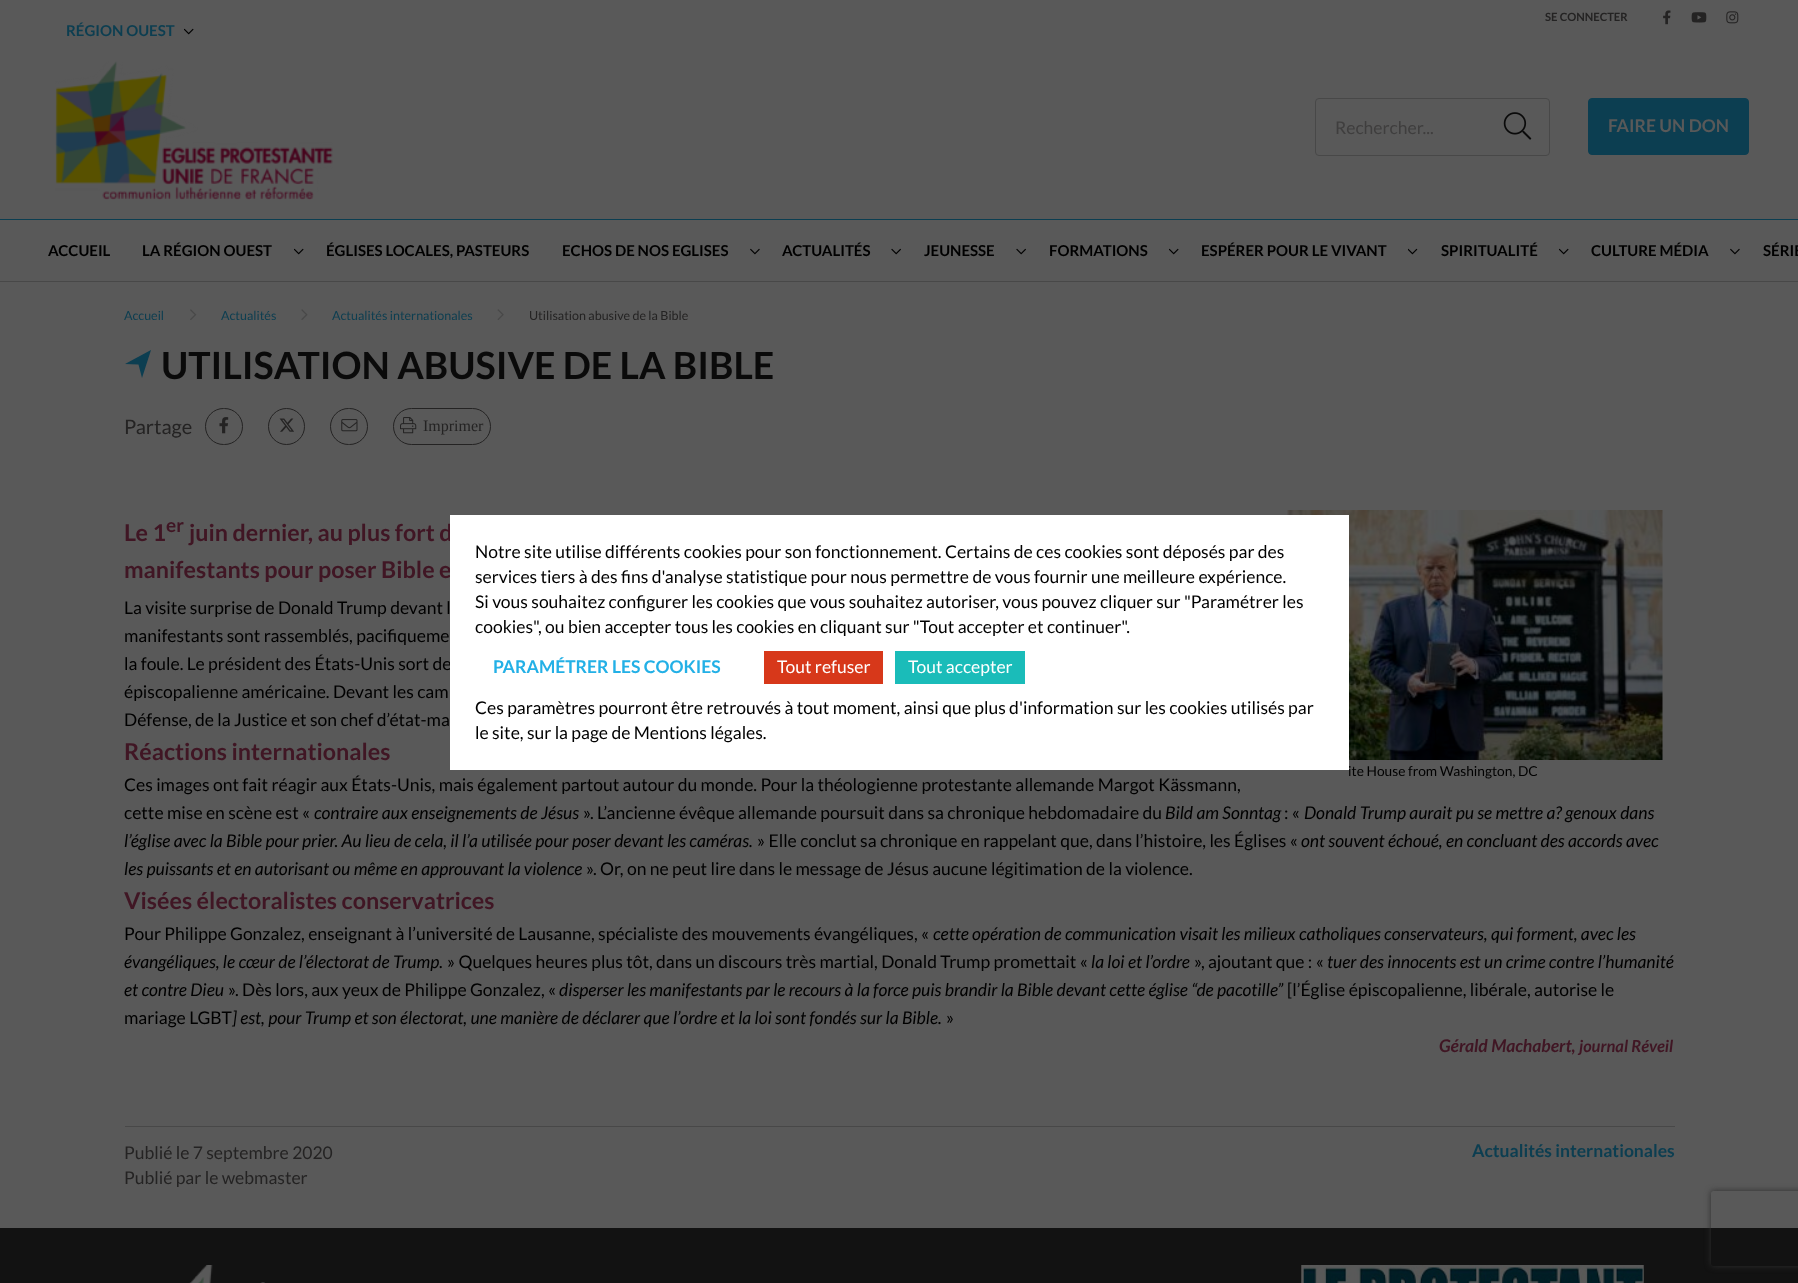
<!DOCTYPE html>
<meta charset="utf-8">
<style>body { margin: 0 } canvas { display: block }</style>
<canvas id="canvas" width="1798" height="1283"></canvas>
<img id="img1" src="images/1.png" hidden>
<img id="img2" src="images/2.png" hidden>
<img id="img3" src="images/3.png" hidden>
<img id="img4" src="images/4.png" hidden>
<img id="img5" src="images/5.png" hidden>
<img id="img6" src="images/6.png" hidden>
<img id="img7" src="images/7.png" hidden>
<img id="img8" src="images/8.png" hidden>
<img id="img9" src="images/9.png" hidden>
<img id="img10" src="images/10.png" hidden>
<img id="img11" src="images/11.png" hidden>
<img id="img12" src="images/12.png" hidden>
<img id="img13" src="images/13.png" hidden>
<img id="img14" src="images/14.png" hidden>
<img id="img15" src="images/15.png" hidden>
<img id="img16" src="images/16.png" hidden>
<img id="img17" src="images/17.png" hidden>
<img id="img18" src="images/18.png" hidden>
<img id="img19" src="images/19.png" hidden>
<script>
window.onload = function () {
    const canvas = document.getElementById('canvas');
    const context = canvas.getContext('2d');
    context.miterLimit = 4;
    context.fontKerning = 'normal';

    context.fillStyle = 'rgb(89, 89, 89)';
    context.fillRect(0, 0, 1798, 1283);
    context.drawImage(document.getElementById('img1'), 1663, 10, 8, 15);
    context.drawImage(document.getElementById('img2'), 1691, 12, 16, 11);
    context.drawImage(document.getElementById('img3'), 1726, 11, 13, 13);
    context.drawImage(document.getElementById('img4'), 184, 28, 10, 7);
    context.fillStyle = 'rgb(12, 62, 81)';
    context.fillRect(0, 219, 1798, 1);
    context.drawImage(document.getElementById('img5'), 55, 61, 278, 139);
    context.beginPath();
    context.roundRect(1315.5, 98.5, 234, 57, 3.5);
    context.strokeStyle = 'rgb(72, 72, 72)';
    context.stroke();
    context.drawImage(document.getElementById('img6'), 1503, 112, 29, 28);
    context.beginPath();
    context.roundRect(1588.5, 98.5, 160, 56, 3.5);
    context.fill();
    context.strokeStyle = 'rgb(12, 62, 81)';
    context.stroke();
    context.fillStyle = 'rgb(72, 72, 72)';
    context.fillRect(0, 281, 1798, 1);
    context.drawImage(document.getElementById('img4'), 294, 248, 10, 7);
    context.drawImage(document.getElementById('img7'), 750, 248, 10, 7);
    context.drawImage(document.getElementById('img8'), 891, 248, 10, 7);
    context.drawImage(document.getElementById('img8'), 1016, 248, 10, 7);
    context.drawImage(document.getElementById('img4'), 1169, 248, 10, 7);
    context.drawImage(document.getElementById('img9'), 1408, 248, 10, 7);
    context.drawImage(document.getElementById('img4'), 1559, 248, 10, 7);
    context.drawImage(document.getElementById('img7'), 1730, 248, 10, 7);
    context.drawImage(document.getElementById('img10'), 190, 309, 7, 11);
    context.drawImage(document.getElementById('img11'), 301, 309, 7, 11);
    context.drawImage(document.getElementById('img12'), 497, 309, 7, 11);
    context.fillStyle = 'rgb(12, 62, 81)';
    context.beginPath();
    context.moveTo(125, 364);
    context.lineTo(138.5, 364.5);
    context.lineTo(142, 378);
    context.lineTo(151, 350);
    context.closePath();
    context.fill();
    context.beginPath();
    context.roundRect(205.5, 408.5, 37, 36, 18);
    context.strokeStyle = 'rgb(36, 35, 35)';
    context.stroke();
    context.drawImage(document.getElementById('img13'), 219, 417, 10, 17);
    context.beginPath();
    context.arc(286.5, 426.5, 18, 0, 2 * Math.PI);
    context.stroke();
    context.drawImage(document.getElementById('img14'), 279, 418, 15, 14);
    context.beginPath();
    context.roundRect(330.5, 408.5, 37, 36, 18);
    context.stroke();
    context.drawImage(document.getElementById('img15'), 341, 419, 17, 13);
    context.beginPath();
    context.roundRect(393.5, 408.5, 97, 36, 18);
    context.stroke();
    context.drawImage(document.getElementById('img16'), 400, 417, 17, 17);
    context.drawImage(document.getElementById('img17'), 1287, 510, 376, 250);
    context.fillStyle = 'rgb(72, 72, 72)';
    context.fillRect(125, 1126, 1550, 1);
    context.fillStyle = 'rgb(18, 18, 18)';
    context.fillRect(0, 1228, 1798, 55);
    context.save();
    context.beginPath();
    context.moveTo(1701, 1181);
    context.lineTo(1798, 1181);
    context.lineTo(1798, 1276);
    context.lineTo(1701, 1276);
    context.closePath();
    context.moveTo(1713.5, 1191);
    context.lineTo(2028.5, 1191);
    context.bezierCurveTo(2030, 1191, 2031, 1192, 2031, 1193.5);
    context.lineTo(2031, 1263.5);
    context.bezierCurveTo(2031, 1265, 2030, 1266, 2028.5, 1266);
    context.lineTo(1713.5, 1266);
    context.bezierCurveTo(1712, 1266, 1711, 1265, 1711, 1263.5);
    context.lineTo(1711, 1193.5);
    context.bezierCurveTo(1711, 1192, 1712, 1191, 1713.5, 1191);
    context.closePath();
    context.clip('evenodd');
    context.fillStyle = 'rgb(45, 45, 45)';
    context.filter = 'blur(3px)';
    context.beginPath();
    context.roundRect(1711, 1191, 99, 75, 2.5);
    context.fill();
    context.filter = 'none';
    context.restore();
    context.drawImage(document.getElementById('img18'), 189, 1265, 76, 18);
    context.drawImage(document.getElementById('img19'), 1301, 1265, 343, 18);
    context.font = 'bold 11.25px Lato';
    context.fillStyle = 'rgb(36, 35, 35)';
    context.fillText('SE CONNECTER', 1545, 21);
    context.font = 'bold 15px Lato';
    context.fillStyle = 'rgb(12, 62, 81)';
    context.fillText('RÉGION OUEST', 66, 36);
    context.font = '17.5px Lato';
    context.fillStyle = 'rgb(63, 62, 62)';
    context.fillText('Rechercher...', 1335, 134);
    context.font = 'bold 17.5px Lato';
    context.fillStyle = 'rgb(89, 89, 89)';
    context.fillText('FAIRE UN DON', 1608, 132);
    context.font = 'bold 15px Lato';
    context.fillStyle = 'rgb(0, 0, 0)';
    context.fillText('ACCUEIL', 48, 256);
    context.fillText('LA RÉGION OUEST', 142, 256);
    context.fillText('ÉGLISES LOCALES, PASTEURS', 326, 256);
    context.fillText('ECHOS DE NOS EGLISES', 562, 256);
    context.fillText('ACTUALITÉS', 782, 256);
    context.fillText('JEUNESSE', 924, 256);
    context.fillText('FORMATIONS', 1049, 256);
    context.fillText('ESPÉRER POUR LE VIVANT', 1201, 256);
    context.fillText('SPIRITUALITÉ', 1441, 256);
    context.fillText('CULTURE MÉDIA', 1591, 256);
    context.fillText('SÉRIE', 1763, 256);
    context.font = '12.5px Lato';
    context.fillStyle = 'rgb(12, 62, 81)';
    context.fillText('Accueil', 124, 320);
    context.fillText('Actualités', 221, 320);
    context.fillText('Actualités internationales', 332, 320);
    context.fillStyle = 'rgb(36, 35, 35)';
    context.fillText('Utilisation abusive de la Bible', 529, 320);
    context.font = 'bold 37.5px Lato';
    context.fillStyle = 'rgb(10, 10, 10)';
    context.fillText('UTILISATION ABUSIVE DE LA BIBLE', 161, 379);
    context.font = '20px Lato';
    context.fillStyle = 'rgb(36, 35, 35)';
    context.fillText('Partage', 124, 434);
    context.font = '16px Liberation Serif';
    context.fillText('Imprimer', 423, 431);
    context.font = 'bold 23.3px Lato';
    context.fillStyle = 'rgb(64, 22, 36)';
    context.fillText('Le 1', 124, 541);
    context.font = 'bold 19px Lato';
    context.fillText('er', 166, 532);
    context.font = 'bold 23.3px Lato';
    context.fillText('juin dernier, au plus fort d', 189, 541);
    context.fillText('manifestants pour poser Bible e', 124, 578);
    context.font = '17.5px Lato';
    context.fillStyle = 'rgb(0, 0, 0)';
    context.fillText('La visite surprise de Donald Trump devant l', 124, 614);
    context.fillText('manifestants sont rassemblés, pacifiqueme', 124, 642);
    context.fillText('la foule. Le président des États-Unis sort de', 124, 670);
    context.fillText('épiscopalienne américaine. Devant les cam', 124, 698);
    context.fillText('Défense, de la Justice et son chef d’état-ma', 124, 726);
    context.font = 'bold 23.3px Lato';
    context.fillStyle = 'rgb(64, 22, 36)';
    context.fillText('Réactions internationales', 124, 760);
    context.font = '13.75px Lato';
    context.fillStyle = 'rgb(0, 0, 0)';
    context.fillText('ite House from Washington, DC', 1348, 776);
    context.font = '17.5px Lato';
    context.fillText('Ces images ont fait réagir aux États-Unis, mais également partout autour du monde. Pour la théologienne protestante allemande Margot Kässmann,', 124, 791);
    context.fillText('cette mise en scène est «', 124, 819);
    context.font = 'italic 17.5px Lato';
    context.fillText('contraire aux enseignements de Jésus', 314, 819);
    context.font = '17.5px Lato';
    context.fillText('». L’ancienne évêque allemande poursuit dans sa chronique hebdomadaire du', 583, 819);
    context.font = 'italic 17.5px Lato';
    context.fillText('Bild am Sonntag', 1165, 819);
    context.font = '17.5px Lato';
    context.fillText(': «', 1284, 819);
    context.font = 'italic 17.5px Lato';
    context.fillText('Donald Trump aurait pu se mettre a? genoux dans', 1304, 819);
    context.fillText('l’église avec la Bible pour prier. Au lieu de cela, il l’a utilisée pour poser devant les caméras.', 124, 847);
    context.font = '17.5px Lato';
    context.fillText('» Elle conclut sa chronique en rappelant que, dans l’histoire, les Églises «', 757, 847);
    context.font = 'italic 17.5px Lato';
    context.fillText('ont souvent échoué, en concluant des accords avec', 1301, 847);
    context.fillText('les puissants et en autorisant ou même en approuvant la violence', 124, 875);
    context.font = '17.5px Lato';
    context.fillText('». Or, on ne peut lire dans le message de Jésus aucune légitimation de la violence.', 586, 875);
    context.font = 'bold 23.3px Lato';
    context.fillStyle = 'rgb(64, 22, 36)';
    context.fillText('Visées électoralistes conservatrices', 124, 909);
    context.font = '17.5px Lato';
    context.fillStyle = 'rgb(0, 0, 0)';
    context.fillText('Pour Philippe Gonzalez, enseignant à l’université de Lausanne, spécialiste des mouvements évangéliques, «', 124, 940);
    context.font = 'italic 17.5px Lato';
    context.fillText('cette opération de communication visait les milieux catholiques conservateurs, qui forment, avec les', 933, 940);
    context.fillText('évangéliques, le cœur de l’électorat de Trump.', 124, 968);
    context.font = '17.5px Lato';
    context.fillText('» Quelques heures plus tôt, dans un discours très martial, Donald Trump promettait «', 447, 968);
    context.font = 'italic 17.5px Lato';
    context.fillText('la loi et l’ordre', 1091, 968);
    context.font = '17.5px Lato';
    context.fillText('», ajoutant que : «', 1194, 968);
    context.font = 'italic 17.5px Lato';
    context.fillText('tuer des innocents est un crime contre l’humanité', 1327, 968);
    context.fillText('et contre Dieu', 124, 996);
    context.font = '17.5px Lato';
    context.fillText('». Dès lors, aux yeux de Philippe Gonzalez, «', 228, 996);
    context.font = 'italic 17.5px Lato';
    context.fillText('disperser les manifestants par le recours à la force puis brandir la Bible devant cette église “de pacotille”', 559, 996);
    context.font = '17.5px Lato';
    context.fillText('[l’Église épiscopalienne, libérale, autorise le', 1287, 996);
    context.fillText('mariage LGBT', 124, 1024);
    context.font = 'italic 17.5px Lato';
    context.fillText('] est, pour Trump et son électorat, une manière de déclarer que l’ordre et la loi sont fondés sur la Bible.', 232, 1024);
    context.font = '17.5px Lato';
    context.fillText('»', 946, 1024);
    context.font = 'italic bold 17.5px Lato';
    context.fillStyle = 'rgb(64, 22, 36)';
    context.fillText('Gérald Machabert,', 1439, 1052);
    context.font = 'italic bold 16.5px Lato';
    context.fillText('journal Réveil', 1579, 1052);
    context.font = '17.5px Lato';
    context.fillStyle = 'rgb(36, 35, 35)';
    context.fillText('Publié le 7 septembre 2020', 124, 1159);
    context.fillText('Publié par le webmaster', 124, 1184);
    context.font = 'bold 17.5px Lato';
    context.fillStyle = 'rgb(12, 62, 81)';
    context.fillText('Actualités internationales', 1472, 1157);
    context.fillStyle = 'rgb(255, 255, 255)';
    context.fillRect(450, 515, 899, 255);
    context.font = '17.5px Lato';
    context.fillStyle = 'rgb(0, 0, 0)';
    context.fillText('Notre site utilise différents cookies pour son fonctionnement. Certains de ces cookies sont déposés par des', 475, 558);
    context.fillText('services tiers à des fins d\'analyse statistique pour nous permettre de vous fournir une meilleure expérience.', 475, 583);
    context.fillText('Si vous souhaitez configurer les cookies que vous souhaitez autoriser, vous pouvez cliquer sur "Paramétrer les', 475, 608);
    context.fillText('cookies", ou bien accepter tous les cookies en cliquant sur "Tout accepter et continuer".', 475, 633);
    context.font = 'bold 17.5px Lato';
    context.fillStyle = 'rgb(35, 176, 230)';
    context.fillText('PARAMÉTRER LES COOKIES', 493, 673);
    context.fillStyle = 'rgb(215, 56, 26)';
    context.fillRect(764, 651, 119, 33);
    context.font = '17.5px Lato';
    context.fillStyle = 'rgb(255, 255, 255)';
    context.fillText('Tout refuser', 777, 673);
    context.fillStyle = 'rgb(26, 188, 185)';
    context.fillRect(895, 651, 130, 33);
    context.fillStyle = 'rgb(255, 255, 255)';
    context.fillText('Tout accepter', 908, 673);
    context.fillStyle = 'rgb(0, 0, 0)';
    context.fillText('Ces paramètres pourront être retrouvés à tout moment, ainsi que plus d\'information sur les cookies utilisés par', 475, 714);
    context.fillText('le site, sur la page de Mentions légales.', 475, 739);
};
</script>
